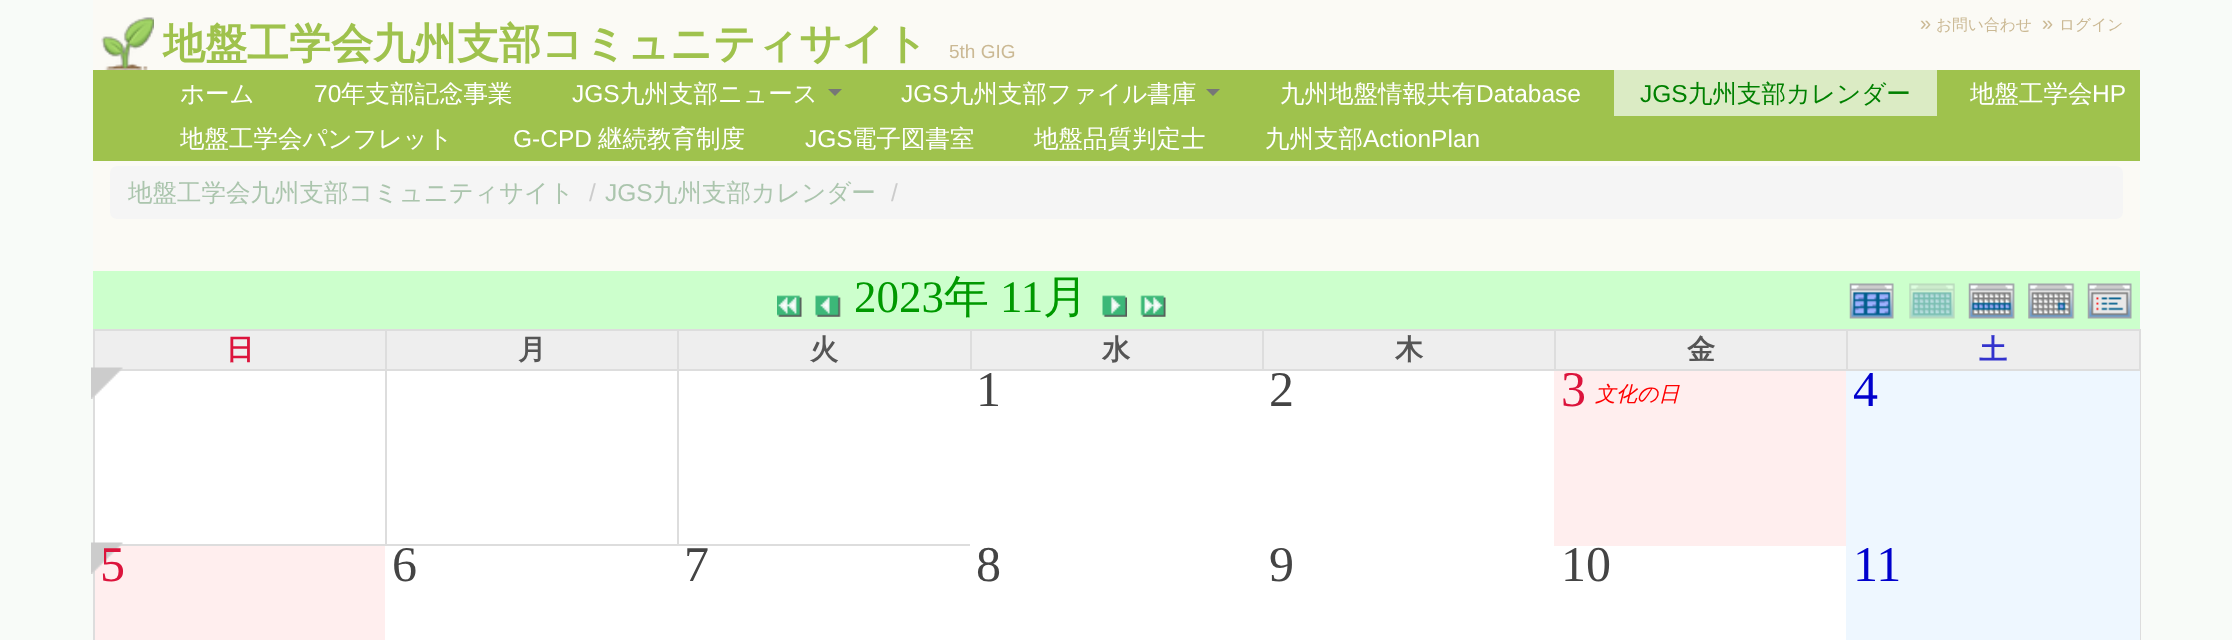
<!DOCTYPE html>
<meta charset="utf-8">
<style>body { margin: 0 } canvas { display: block }</style>
<canvas id="canvas" width="2232" height="640"></canvas>
<img id="img1" src="images/1.png" hidden>
<img id="img2" src="images/2.png" hidden>
<img id="img3" src="images/3.png" hidden>
<img id="img4" src="images/4.png" hidden>
<img id="img5" src="images/5.png" hidden>
<img id="img6" src="images/6.png" hidden>
<img id="img7" src="images/7.png" hidden>
<img id="img8" src="images/8.png" hidden>
<img id="img9" src="images/9.png" hidden>
<img id="img10" src="images/10.png" hidden>
<img id="img11" src="images/11.png" hidden>
<img id="img12" src="images/12.png" hidden>
<script>
window.onload = function () {
    const canvas = document.getElementById('canvas');
    const context = canvas.getContext('2d');
    context.miterLimit = 4;
    context.fontKerning = 'normal';

    context.fillStyle = 'rgb(248, 251, 248)';
    context.fillRect(0, 0, 2232, 640);
    context.fillStyle = 'rgb(251, 250, 245)';
    context.fillRect(93, 0, 2047, 271);
    context.drawImage(document.getElementById('img1'), 101, 17, 53, 53);
    context.fillStyle = 'rgb(159, 194, 77)';
    context.fillRect(93, 70, 2047, 91);
    context.fillStyle = 'rgb(119, 119, 119)';
    context.beginPath();
    context.moveTo(828, 89);
    context.lineTo(842, 89);
    context.lineTo(835, 96);
    context.closePath();
    context.fill();
    context.beginPath();
    context.moveTo(1206, 89);
    context.lineTo(1220, 89);
    context.lineTo(1213, 96);
    context.closePath();
    context.fill();
    context.fillStyle = 'rgb(219, 235, 196)';
    context.fillRect(1614, 70, 323, 46);
    context.fillStyle = 'rgb(245, 245, 245)';
    context.beginPath();
    context.roundRect(110, 166, 2013, 53, 7);
    context.fill();
    context.fillStyle = 'rgb(204, 255, 204)';
    context.fillRect(93, 271, 2047, 58);
    context.drawImage(document.getElementById('img2'), 777, 295, 25, 22);
    context.drawImage(document.getElementById('img3'), 815, 295, 26, 22);
    context.drawImage(document.getElementById('img4'), 1102, 295, 25, 22);
    context.drawImage(document.getElementById('img5'), 1140, 295, 26, 22);
    context.drawImage(document.getElementById('img6'), 1849, 283, 45, 36);
    context.drawImage(document.getElementById('img7'), 1909, 283, 46, 36);
    context.drawImage(document.getElementById('img8'), 1968, 283, 47, 36);
    context.drawImage(document.getElementById('img9'), 2028, 283, 47, 36);
    context.drawImage(document.getElementById('img10'), 2087, 283, 45, 36);
    context.fillStyle = 'rgb(255, 255, 255)';
    context.fillRect(95, 371, 875, 173);
    context.fillStyle = 'rgb(238, 238, 238)';
    context.fillRect(95, 331, 290, 38);
    context.fillStyle = 'rgb(221, 221, 221)';
    context.fillRect(1846, 329, 294, 2);
    context.fillRect(677, 369, 1463, 2);
    context.fillRect(1846, 329, 2, 42);
    context.fillRect(1554, 329, 294, 2);
    context.fillRect(1554, 329, 2, 42);
    context.fillRect(1262, 329, 294, 2);
    context.fillRect(1262, 329, 2, 42);
    context.fillRect(970, 329, 294, 2);
    context.fillRect(970, 329, 2, 42);
    context.fillRect(677, 329, 294, 2);
    context.fillRect(118, 544, 853, 2);
    context.fillRect(677, 369, 2, 177);
    context.fillRect(385, 369, 294, 2);
    context.fillRect(677, 329, 2, 42);
    context.fillRect(385, 329, 294, 2);
    context.fillRect(385, 369, 2, 177);
    context.fillRect(118, 369, 269, 2);
    context.fillRect(385, 329, 2, 42);
    context.fillRect(93, 329, 294, 2);
    context.fillRect(93, 329, 2, 42);
    context.fillStyle = 'rgb(238, 238, 238)';
    context.fillRect(387, 331, 290, 38);
    context.fillRect(679, 331, 291, 38);
    context.fillRect(972, 331, 290, 38);
    context.fillRect(1264, 331, 290, 38);
    context.fillRect(1556, 331, 290, 38);
    context.fillRect(1848, 331, 291, 38);
    context.fillStyle = 'rgb(221, 221, 221)';
    context.fillRect(2140, 369, 1, 271);
    context.fillRect(2139, 329, 2, 42);
    context.fillRect(93, 395, 2, 151);
    context.drawImage(document.getElementById('img11'), 91, 367, 32, 32);
    context.fillStyle = 'rgb(255, 255, 255)';
    context.fillRect(970, 371, 584, 175);
    context.fillStyle = 'rgb(255, 238, 238)';
    context.fillRect(1554, 371, 292, 175);
    context.fillStyle = 'rgb(238, 247, 255)';
    context.fillRect(1846, 371, 294, 269);
    context.fillStyle = 'rgb(221, 221, 221)';
    context.fillRect(93, 570, 2, 70);
    context.fillStyle = 'rgb(255, 238, 238)';
    context.fillRect(95, 546, 290, 94);
    context.drawImage(document.getElementById('img12'), 91, 542, 32, 32);
    context.fillStyle = 'rgb(255, 255, 255)';
    context.fillRect(385, 546, 1461, 94);
    context.font = 'bold 42px WenQuanYi Zen Hei';
    context.fillStyle = 'rgb(159, 194, 77)';
    context.fillText('地盤工学会九州支部コミュニティサイト', 163, 58);
    context.font = '19px Liberation Sans';
    context.fillStyle = 'rgb(203, 185, 148)';
    context.fillText('5th GIG', 949, 58);
    context.font = '20px Liberation Sans';
    context.fillText('»', 1920, 30);
    context.font = '500 15.75px WenQuanYi Zen Hei';
    context.fillText('お問い合わせ', 1936, 30);
    context.font = '20px Liberation Sans';
    context.fillText('»', 2042, 30);
    context.font = '500 15.75px WenQuanYi Zen Hei';
    context.fillText('ログイン', 2059, 30);
    context.font = '500 24.5px WenQuanYi Zen Hei';
    context.fillStyle = 'rgb(255, 255, 255)';
    context.fillText('ホーム', 180, 102);
    context.font = '24.5px Liberation Sans';
    context.fillText('70', 314, 102);
    context.font = '500 24.5px WenQuanYi Zen Hei';
    context.fillText('年支部記念事業', 341, 102);
    context.font = '24.5px Liberation Sans';
    context.fillText('JGS', 572, 102);
    context.font = '500 24.5px WenQuanYi Zen Hei';
    context.fillText('九州支部ニュース', 620, 102);
    context.font = '24.5px Liberation Sans';
    context.fillText('JGS', 901, 102);
    context.font = '500 24.5px WenQuanYi Zen Hei';
    context.fillText('九州支部ファイル書庫', 949, 102);
    context.fillText('九州地盤情報共有', 1280, 102);
    context.font = '24.5px Liberation Sans';
    context.fillText('Database', 1476, 102);
    context.fillStyle = 'rgb(0, 128, 0)';
    context.fillText('JGS', 1640, 102);
    context.font = '500 24.5px WenQuanYi Zen Hei';
    context.fillText('九州支部カレンダー', 1688, 102);
    context.fillStyle = 'rgb(255, 255, 255)';
    context.fillText('地盤工学会', 1970, 102);
    context.font = '24.5px Liberation Sans';
    context.fillText('HP', 2092, 102);
    context.font = '500 24.5px WenQuanYi Zen Hei';
    context.fillText('地盤工学会パンフレット', 180, 147);
    context.font = '24.5px Liberation Sans';
    context.fillText('G-CPD', 513, 147);
    context.font = '500 24.5px WenQuanYi Zen Hei';
    context.fillText('継続教育制度', 598, 147);
    context.font = '24.5px Liberation Sans';
    context.fillText('JGS', 805, 147);
    context.font = '500 24.5px WenQuanYi Zen Hei';
    context.fillText('電子図書室', 852, 147);
    context.fillText('地盤品質判定士', 1034, 147);
    context.fillText('九州支部', 1265, 147);
    context.font = '24.5px Liberation Sans';
    context.fillText('ActionPlan', 1363, 147);
    context.font = '500 24.5px WenQuanYi Zen Hei';
    context.fillStyle = 'rgb(171, 197, 173)';
    context.fillText('地盤工学会九州支部コミュニティサイト', 128, 201);
    context.font = '24.5px Liberation Sans';
    context.fillStyle = 'rgb(204, 204, 204)';
    context.fillText('/', 589, 201);
    context.fillStyle = 'rgb(171, 197, 173)';
    context.fillText('JGS', 605, 201);
    context.font = '500 24.5px WenQuanYi Zen Hei';
    context.fillText('九州支部カレンダー', 653, 201);
    context.font = '24.5px Liberation Sans';
    context.fillStyle = 'rgb(204, 204, 204)';
    context.fillText('/', 891, 201);
    context.font = '45px Liberation Serif';
    context.fillStyle = 'rgb(0, 153, 0)';
    context.fillText('2023', 854, 312);
    context.font = '500 45px WenQuanYi Zen Hei';
    context.fillText('年', 944, 312);
    context.font = '45px Liberation Serif';
    context.fillText('11', 1000, 312);
    context.font = '500 45px WenQuanYi Zen Hei';
    context.fillText('月', 1043, 312);
    context.font = 'bold 28px WenQuanYi Zen Hei';
    context.fillStyle = 'rgb(220, 20, 60)';
    context.fillText('日', 226, 359);
    context.fillStyle = 'rgb(85, 85, 85)';
    context.fillText('月', 518, 359);
    context.fillText('火', 810, 359);
    context.fillText('水', 1102, 359);
    context.fillText('木', 1395, 359);
    context.fillText('金', 1687, 359);
    context.fillStyle = 'rgb(51, 51, 205)';
    context.fillText('土', 1979, 359);
    context.font = '50px Liberation Serif';
    context.fillStyle = 'rgb(68, 68, 68)';
    context.fillText('1', 976, 406);
    context.fillText('2', 1269, 406);
    context.fillStyle = 'rgb(220, 20, 60)';
    context.fillText('3', 1561, 406);
    context.font = 'italic 500 21px WenQuanYi Zen Hei';
    context.fillStyle = 'rgb(255, 0, 0)';
    context.fillText('文化の日', 1595, 401);
    context.font = '50px Liberation Serif';
    context.fillStyle = 'rgb(0, 0, 205)';
    context.fillText('4', 1853, 406);
    context.fillStyle = 'rgb(220, 20, 60)';
    context.fillText('5', 100, 581);
    context.fillStyle = 'rgb(68, 68, 68)';
    context.fillText('6', 392, 581);
    context.fillText('7', 684, 581);
    context.fillText('8', 976, 581);
    context.fillText('9', 1269, 581);
    context.fillText('10', 1561, 581);
    context.fillStyle = 'rgb(0, 0, 205)';
    context.fillText('11', 1853, 581);
};
</script>
